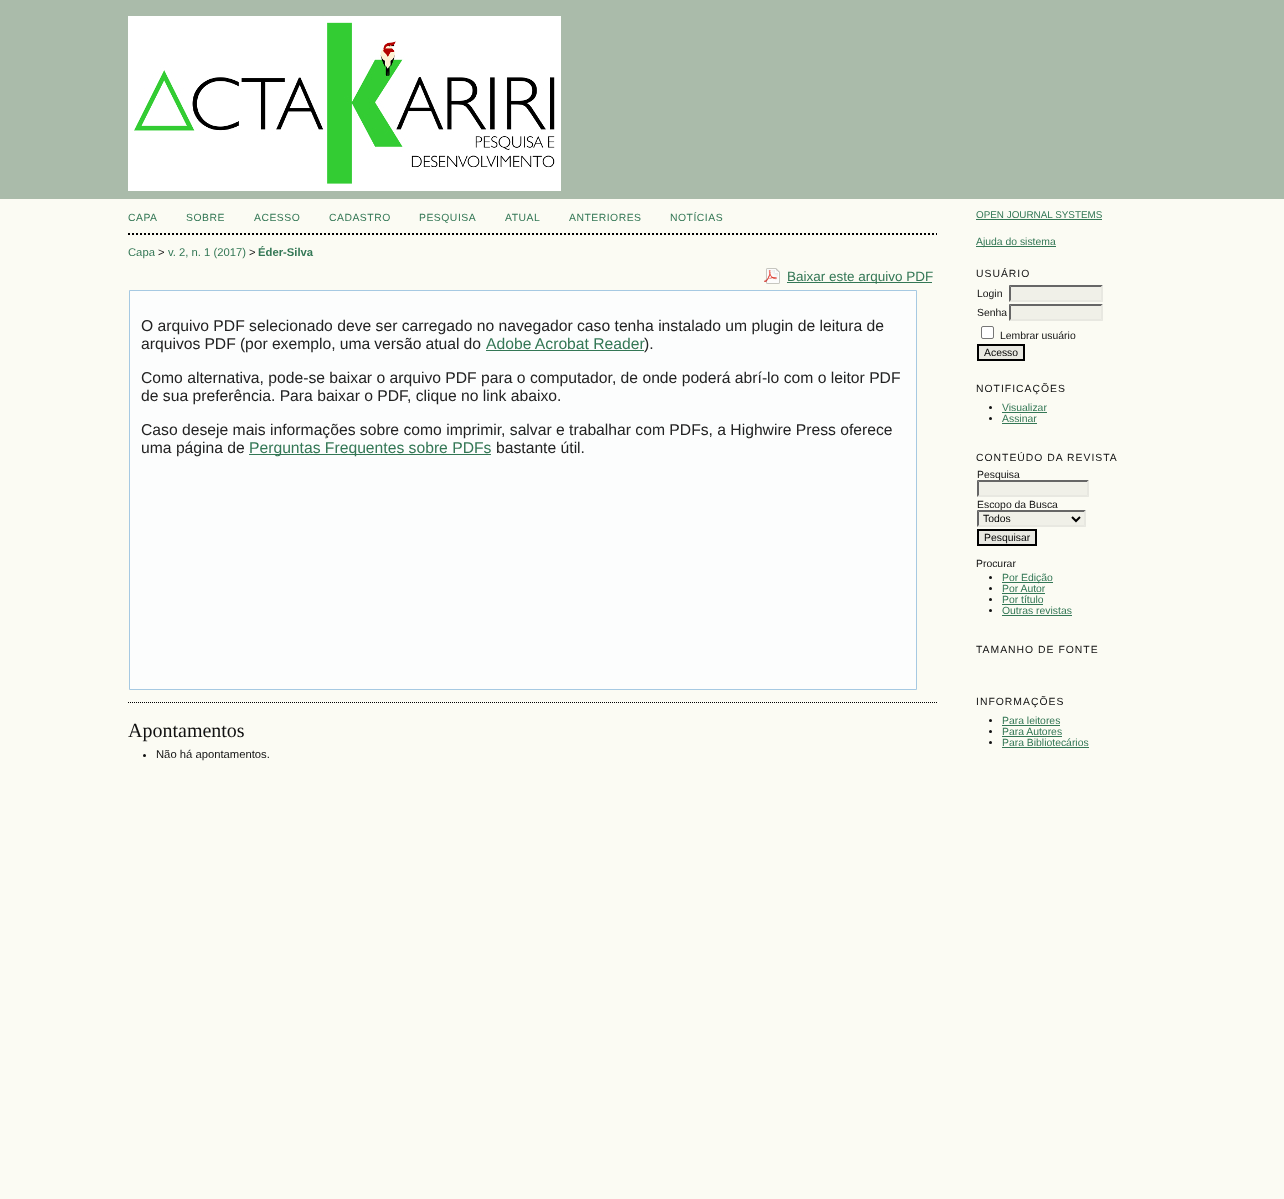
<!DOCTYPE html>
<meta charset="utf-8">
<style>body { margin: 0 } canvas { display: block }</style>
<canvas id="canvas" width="1284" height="1199"></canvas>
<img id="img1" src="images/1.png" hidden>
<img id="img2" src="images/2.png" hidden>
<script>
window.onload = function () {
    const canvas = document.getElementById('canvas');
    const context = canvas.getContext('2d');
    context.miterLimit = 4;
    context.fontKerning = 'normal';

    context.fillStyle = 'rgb(251, 251, 243)';
    context.fillRect(0, 0, 1284, 1199);
    context.fillStyle = 'rgb(170, 187, 170)';
    context.fillRect(0, 0, 1284, 199);
    context.drawImage(document.getElementById('img1'), 128, 16, 433, 175);
    context.beginPath();
    context.moveTo(128, 234);
    context.lineTo(937, 234);
    context.strokeStyle = 'rgb(0, 0, 0)';
    context.lineWidth = 2;
    context.setLineDash([2, 2]);
    context.stroke();
    context.drawImage(document.getElementById('img2'), 764, 268, 16, 16);
    context.fillStyle = 'rgb(51, 119, 85)';
    context.fillRect(787, 282, 145, 1);
    context.fillStyle = 'rgb(252, 253, 253)';
    context.beginPath();
    context.rect(129.5, 290.5, 787, 399);
    context.fill();
    context.strokeStyle = 'rgb(166, 201, 226)';
    context.lineWidth = 1;
    context.setLineDash([]);
    context.stroke();
    context.fillStyle = 'rgb(51, 119, 85)';
    context.fillRect(486, 350, 158, 1);
    context.fillRect(249, 454, 242, 1);
    context.beginPath();
    context.moveTo(128, 702.5);
    context.lineTo(937, 702.5);
    context.strokeStyle = 'rgb(0, 0, 0)';
    context.setLineDash([1, 1]);
    context.stroke();
    context.fillStyle = 'rgb(17, 17, 17)';
    context.beginPath();
    context.arc(144.5, 755.5, 1.5, 0, 2 * Math.PI);
    context.fill();
    context.fillStyle = 'rgb(51, 119, 85)';
    context.fillRect(976, 219, 126, 1);
    context.fillRect(976, 246, 80, 1);
    context.fillStyle = 'rgb(240, 240, 232)';
    context.fillRect(1009, 285, 94, 17);
    context.fillStyle = 'rgb(102, 102, 102)';
    context.beginPath();
    context.moveTo(1009, 285);
    context.lineTo(1103, 285);
    context.lineTo(1101, 287);
    context.lineTo(1011, 287);
    context.closePath();
    context.fill();
    context.fillStyle = 'rgb(232, 232, 225)';
    context.beginPath();
    context.moveTo(1103, 285);
    context.lineTo(1103, 302);
    context.lineTo(1101, 300);
    context.lineTo(1101, 287);
    context.closePath();
    context.fill();
    context.beginPath();
    context.moveTo(1103, 302);
    context.lineTo(1009, 302);
    context.lineTo(1011, 300);
    context.lineTo(1101, 300);
    context.closePath();
    context.fill();
    context.fillStyle = 'rgb(102, 102, 102)';
    context.beginPath();
    context.moveTo(1009, 302);
    context.lineTo(1009, 285);
    context.lineTo(1011, 287);
    context.lineTo(1011, 300);
    context.closePath();
    context.fill();
    context.fillStyle = 'rgb(240, 240, 232)';
    context.fillRect(1009, 304, 94, 17);
    context.fillStyle = 'rgb(102, 102, 102)';
    context.beginPath();
    context.moveTo(1009, 304);
    context.lineTo(1103, 304);
    context.lineTo(1101, 306);
    context.lineTo(1011, 306);
    context.closePath();
    context.fill();
    context.fillStyle = 'rgb(232, 232, 225)';
    context.beginPath();
    context.moveTo(1103, 304);
    context.lineTo(1103, 321);
    context.lineTo(1101, 319);
    context.lineTo(1101, 306);
    context.closePath();
    context.fill();
    context.beginPath();
    context.moveTo(1103, 321);
    context.lineTo(1009, 321);
    context.lineTo(1011, 319);
    context.lineTo(1101, 319);
    context.closePath();
    context.fill();
    context.fillStyle = 'rgb(102, 102, 102)';
    context.beginPath();
    context.moveTo(1009, 321);
    context.lineTo(1009, 304);
    context.lineTo(1011, 306);
    context.lineTo(1011, 319);
    context.closePath();
    context.fill();
    context.fillStyle = 'rgb(255, 255, 255)';
    context.beginPath();
    context.roundRect(981.5, 326.5, 12, 12, 1.5);
    context.fill();
    context.strokeStyle = 'rgb(118, 118, 118)';
    context.setLineDash([]);
    context.stroke();
    context.fillStyle = 'rgb(232, 232, 225)';
    context.beginPath();
    context.rect(978, 345, 46, 15);
    context.fill();
    context.strokeStyle = 'rgb(0, 0, 0)';
    context.lineWidth = 2;
    context.stroke();
    context.fillStyle = 'rgb(17, 17, 17)';
    context.beginPath();
    context.arc(990.5, 407.5, 1.5, 0, 2 * Math.PI);
    context.fill();
    context.fillStyle = 'rgb(51, 119, 85)';
    context.fillRect(1002, 412, 45, 1);
    context.fillStyle = 'rgb(17, 17, 17)';
    context.beginPath();
    context.arc(990.5, 418.5, 1.5, 0, 2 * Math.PI);
    context.fill();
    context.fillStyle = 'rgb(51, 119, 85)';
    context.fillRect(1002, 423, 35, 1);
    context.fillStyle = 'rgb(232, 232, 225)';
    context.beginPath();
    context.rect(978, 530, 58, 15);
    context.fill();
    context.stroke();
    context.fillStyle = 'rgb(17, 17, 17)';
    context.beginPath();
    context.arc(990.5, 577.5, 1.5, 0, 2 * Math.PI);
    context.fill();
    context.fillStyle = 'rgb(51, 119, 85)';
    context.fillRect(1002, 582, 51, 1);
    context.fillStyle = 'rgb(17, 17, 17)';
    context.beginPath();
    context.arc(990.5, 588.5, 1.5, 0, 2 * Math.PI);
    context.fill();
    context.fillStyle = 'rgb(51, 119, 85)';
    context.fillRect(1002, 593, 43, 1);
    context.fillStyle = 'rgb(17, 17, 17)';
    context.beginPath();
    context.arc(990.5, 599.5, 1.5, 0, 2 * Math.PI);
    context.fill();
    context.fillStyle = 'rgb(51, 119, 85)';
    context.fillRect(1002, 604, 41, 1);
    context.fillStyle = 'rgb(17, 17, 17)';
    context.beginPath();
    context.arc(990.5, 610.5, 1.5, 0, 2 * Math.PI);
    context.fill();
    context.fillStyle = 'rgb(51, 119, 85)';
    context.fillRect(1002, 615, 70, 1);
    context.fillStyle = 'rgb(17, 17, 17)';
    context.beginPath();
    context.arc(990.5, 720.5, 1.5, 0, 2 * Math.PI);
    context.fill();
    context.fillStyle = 'rgb(51, 119, 85)';
    context.fillRect(1002, 725, 58, 1);
    context.fillStyle = 'rgb(17, 17, 17)';
    context.beginPath();
    context.arc(990.5, 731.5, 1.5, 0, 2 * Math.PI);
    context.fill();
    context.fillStyle = 'rgb(51, 119, 85)';
    context.fillRect(1002, 736, 60, 1);
    context.fillStyle = 'rgb(17, 17, 17)';
    context.beginPath();
    context.arc(990.5, 742.5, 1.5, 0, 2 * Math.PI);
    context.fill();
    context.fillStyle = 'rgb(51, 119, 85)';
    context.fillRect(1002, 747, 87, 1);
    context.letterSpacing = '0.5px';
    context.font = '10.4px Liberation Sans';
    context.fillText('CAPA', 128, 221);
    context.fillText('SOBRE', 186, 221);
    context.fillText('ACESSO', 254, 221);
    context.fillText('CADASTRO', 329, 221);
    context.fillText('PESQUISA', 419, 221);
    context.fillText('ATUAL', 505, 221);
    context.fillText('ANTERIORES', 569, 221);
    context.fillText('NOTÍCIAS', 670, 221);
    context.letterSpacing = '0px';
    context.font = '11.25px Liberation Sans';
    context.fillText('Capa', 128, 256);
    context.fillStyle = 'rgb(17, 17, 17)';
    context.fillText('>', 158, 256);
    context.fillStyle = 'rgb(51, 119, 85)';
    context.fillText('v. 2, n. 1 (2017)', 168, 256);
    context.fillStyle = 'rgb(17, 17, 17)';
    context.fillText('>', 249, 256);
    context.font = 'bold 11.25px Liberation Sans';
    context.fillStyle = 'rgb(51, 119, 85)';
    context.fillText('Éder-Silva', 258, 256);
    context.font = '13.5px Liberation Sans';
    context.fillText('Baixar este arquivo PDF', 787, 281);
    context.font = '15.7px Liberation Sans';
    context.fillStyle = 'rgb(34, 34, 34)';
    context.fillText('O arquivo PDF selecionado deve ser carregado no navegador caso tenha instalado um plugin de leitura de', 141, 331);
    context.wordSpacing = '-0.25px';
    context.fillText('arquivos PDF (por exemplo, uma versão atual do', 141, 349);
    context.wordSpacing = '0px';
    context.fillStyle = 'rgb(51, 119, 85)';
    context.fillText('Adobe Acrobat Reader', 486, 349);
    context.fillStyle = 'rgb(34, 34, 34)';
    context.fillText(').', 644, 349);
    context.fillText('Como alternativa, pode-se baixar o arquivo PDF para o computador, de onde poderá abrí-lo com o leitor PDF', 141, 383);
    context.fillText('de sua preferência. Para baixar o PDF, clique no link abaixo.', 141, 401);
    context.fillText('Caso deseje mais informações sobre como imprimir, salvar e trabalhar com PDFs, a Highwire Press oferece', 141, 435);
    context.fillText('uma página de', 141, 453);
    context.fillStyle = 'rgb(51, 119, 85)';
    context.fillText('Perguntas Frequentes sobre PDFs', 249, 453);
    context.fillStyle = 'rgb(34, 34, 34)';
    context.fillText('bastante útil.', 496, 453);
    context.font = '20px Liberation Serif';
    context.fillStyle = 'rgb(17, 17, 17)';
    context.fillText('Apontamentos', 128, 737);
    context.font = '11.25px Liberation Sans';
    context.fillText('Não há apontamentos.', 156, 758);
    context.font = '9.9px Liberation Sans';
    context.fillStyle = 'rgb(51, 119, 85)';
    context.fillText('OPEN JOURNAL SYSTEMS', 976, 218);
    context.font = '10.4px Liberation Sans';
    context.fillText('Ajuda do sistema', 976, 245);
    context.letterSpacing = '1px';
    context.fillStyle = 'rgb(17, 17, 17)';
    context.fillText('USUÁRIO', 976, 277);
    context.letterSpacing = '0px';
    context.fillText('Login', 977, 297);
    context.fillText('Senha', 977, 316);
    context.fillText('Lembrar usuário', 1000, 339);
    context.fillStyle = 'rgb(0, 0, 0)';
    context.fillText('Acesso', 984, 356);
    context.letterSpacing = '1px';
    context.fillStyle = 'rgb(17, 17, 17)';
    context.fillText('NOTIFICAÇÕES', 976, 392);
    context.letterSpacing = '0px';
    context.fillStyle = 'rgb(51, 119, 85)';
    context.fillText('Visualizar', 1002, 411);
    context.fillText('Assinar', 1002, 422);
    context.letterSpacing = '1px';
    context.fillStyle = 'rgb(17, 17, 17)';
    context.fillText('CONTEÚDO DA REVISTA', 976, 461);
    context.letterSpacing = '0px';
    context.fillText('Pesquisa', 977, 478);
    context.fillStyle = 'rgb(240, 240, 232)';
    context.fillRect(977, 480, 112, 17);
    context.fillStyle = 'rgb(102, 102, 102)';
    context.beginPath();
    context.moveTo(977, 480);
    context.lineTo(1089, 480);
    context.lineTo(1087, 482);
    context.lineTo(979, 482);
    context.closePath();
    context.fill();
    context.fillStyle = 'rgb(232, 232, 225)';
    context.beginPath();
    context.moveTo(1089, 480);
    context.lineTo(1089, 497);
    context.lineTo(1087, 495);
    context.lineTo(1087, 482);
    context.closePath();
    context.fill();
    context.beginPath();
    context.moveTo(1089, 497);
    context.lineTo(977, 497);
    context.lineTo(979, 495);
    context.lineTo(1087, 495);
    context.closePath();
    context.fill();
    context.fillStyle = 'rgb(102, 102, 102)';
    context.beginPath();
    context.moveTo(977, 497);
    context.lineTo(977, 480);
    context.lineTo(979, 482);
    context.lineTo(979, 495);
    context.closePath();
    context.fill();
    context.fillStyle = 'rgb(17, 17, 17)';
    context.fillText('Escopo da Busca', 977, 508);
    context.fillStyle = 'rgb(240, 240, 232)';
    context.fillRect(977, 510, 109, 17);
    context.fillStyle = 'rgb(102, 102, 102)';
    context.beginPath();
    context.moveTo(977, 510);
    context.lineTo(1086, 510);
    context.lineTo(1084, 512);
    context.lineTo(979, 512);
    context.closePath();
    context.fill();
    context.fillStyle = 'rgb(232, 232, 225)';
    context.beginPath();
    context.moveTo(1086, 510);
    context.lineTo(1086, 527);
    context.lineTo(1084, 525);
    context.lineTo(1084, 512);
    context.closePath();
    context.fill();
    context.beginPath();
    context.moveTo(1086, 527);
    context.lineTo(977, 527);
    context.lineTo(979, 525);
    context.lineTo(1084, 525);
    context.closePath();
    context.fill();
    context.fillStyle = 'rgb(102, 102, 102)';
    context.beginPath();
    context.moveTo(977, 527);
    context.lineTo(977, 510);
    context.lineTo(979, 512);
    context.lineTo(979, 525);
    context.closePath();
    context.fill();
    context.beginPath();
    context.moveTo(1072, 517);
    context.lineTo(1076, 521);
    context.lineTo(1080, 517);
    context.stroke();
    context.fillStyle = 'rgb(0, 0, 0)';
    context.fillText('Todos', 983, 522);
    context.fillText('Pesquisar', 984, 541);
    context.fillStyle = 'rgb(17, 17, 17)';
    context.fillText('Procurar', 976, 567);
    context.fillStyle = 'rgb(51, 119, 85)';
    context.fillText('Por Edição', 1002, 581);
    context.fillText('Por Autor', 1002, 592);
    context.fillText('Por título', 1002, 603);
    context.fillText('Outras revistas', 1002, 614);
    context.letterSpacing = '1px';
    context.fillStyle = 'rgb(17, 17, 17)';
    context.fillText('TAMANHO DE FONTE', 976, 653);
    context.fillText('INFORMAÇÕES', 976, 705);
    context.letterSpacing = '0px';
    context.fillStyle = 'rgb(51, 119, 85)';
    context.fillText('Para leitores', 1002, 724);
    context.fillText('Para Autores', 1002, 735);
    context.fillText('Para Bibliotecários', 1002, 746);
};
</script>
